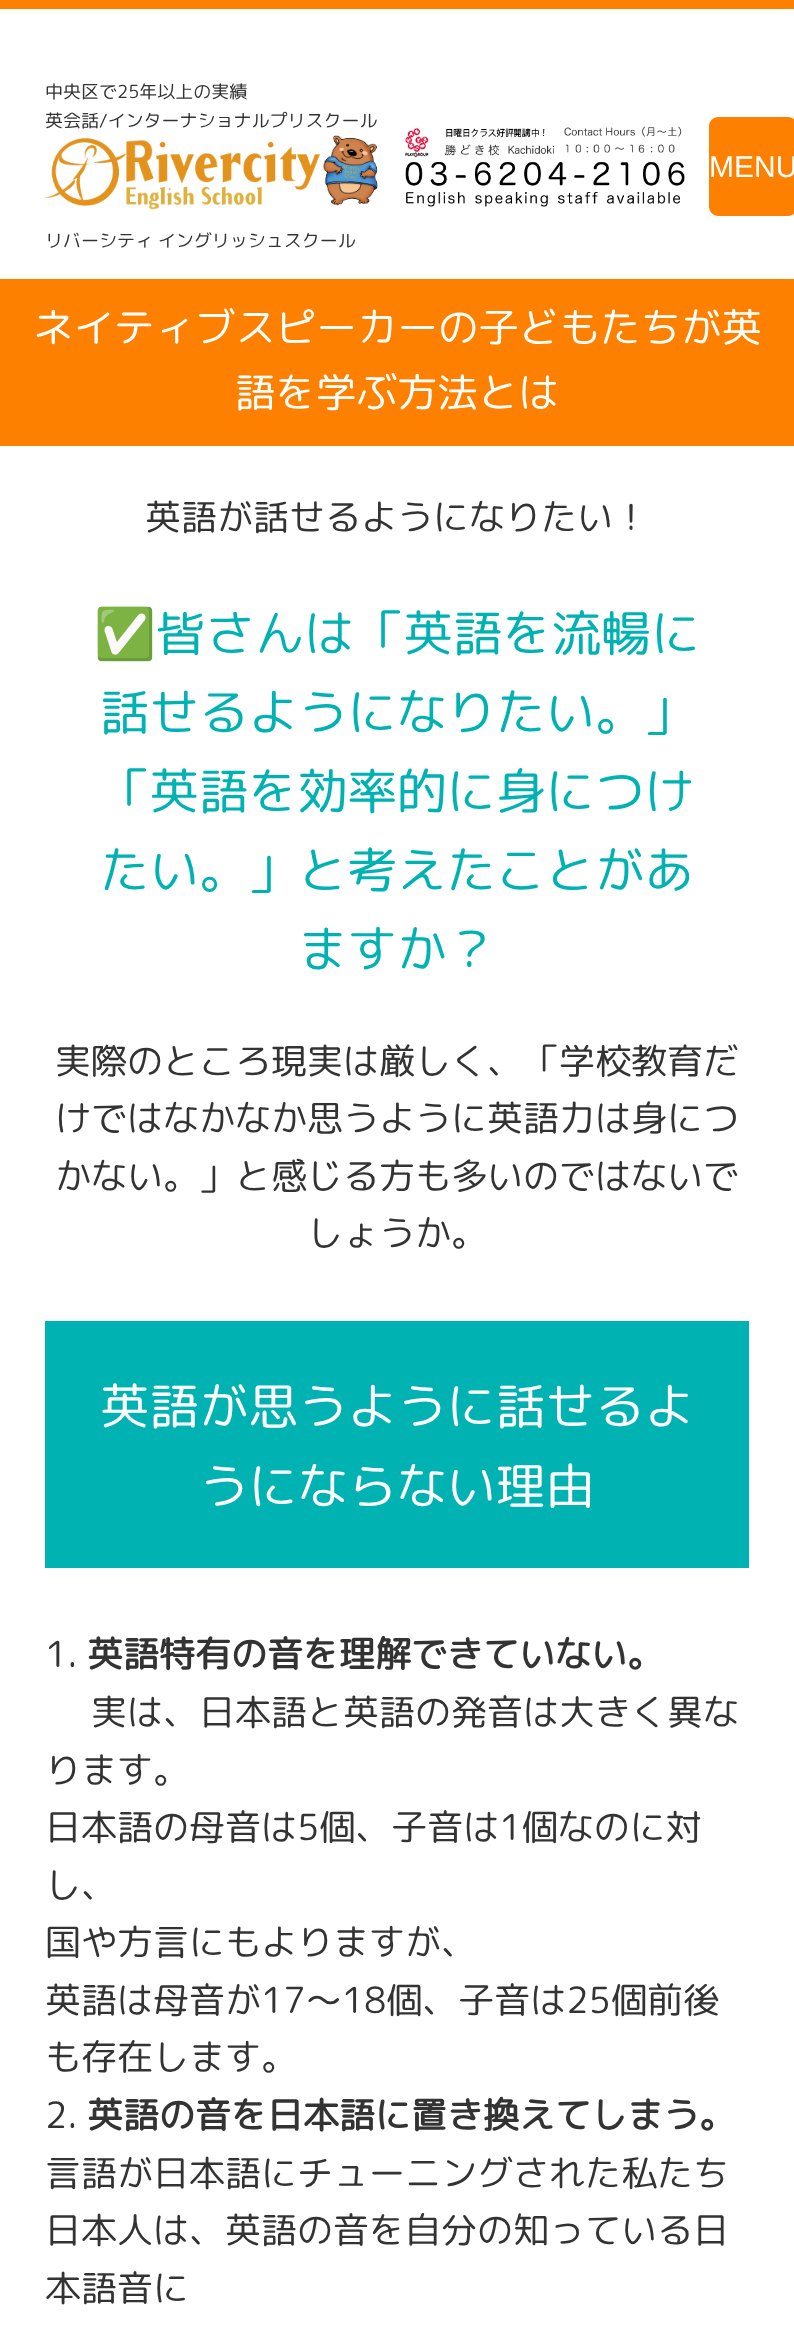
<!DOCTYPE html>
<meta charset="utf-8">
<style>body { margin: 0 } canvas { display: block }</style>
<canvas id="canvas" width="794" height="2336"></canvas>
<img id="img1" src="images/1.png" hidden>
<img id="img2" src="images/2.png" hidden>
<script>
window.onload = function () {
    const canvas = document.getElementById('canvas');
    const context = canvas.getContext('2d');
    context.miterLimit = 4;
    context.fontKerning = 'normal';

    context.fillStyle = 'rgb(255, 255, 255)';
    context.fillRect(0, 0, 794, 2336);
    context.fillStyle = 'rgb(254, 128, 0)';
    context.fillRect(0, 0, 794, 9);
    context.drawImage(document.getElementById('img1'), 45, 135, 333, 75);
    context.drawImage(document.getElementById('img2'), 405, 126, 280, 81);
    context.beginPath();
    context.roundRect(709, 117, 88, 99, 9);
    context.fill();
    context.fillRect(0, 279, 794, 167);
    context.fillStyle = 'rgb(0, 178, 178)';
    context.fillRect(45, 1321, 704, 247);
    context.font = '18px "Rounded Mplus 1c"';
    context.fillStyle = 'rgb(51, 51, 51)';
    context.fillText('中央区で25年以上の実績', 45, 98);
    context.fillText('英会話/インターナショナルプリスクール', 45, 127);
    context.fillText('リバーシティ イングリッシュスクール', 45, 247);
    context.font = '30px Liberation Sans';
    context.fillStyle = 'rgb(255, 255, 255)';
    context.fillText('MENU', 709, 177);
    context.font = '40.5px "Rounded Mplus 1c"';
    context.fillText('ネイティブスピーカーの子どもたちが英', 33, 342);
    context.fillText('語を学ぶ方法とは', 235, 407);
    context.font = '36px "Rounded Mplus 1c"';
    context.fillStyle = 'rgb(51, 51, 51)';
    context.fillText('英語が話せるようになりたい！', 145, 530);
    context.font = '49.5px Noto Color Emoji';
    context.fillStyle = 'rgb(0, 178, 178)';
    context.fillText('✅', 94, 651);
    context.font = '49.5px "Rounded Mplus 1c"';
    context.fillText('皆さんは「英語を流暢に', 156, 651);
    context.fillText('話せるようになりたい。」', 100, 730);
    context.fillText('「英語を効率的に身につけ', 100, 809);
    context.fillText('たい。」と考えたことがあ', 100, 888);
    context.fillText('ますか？', 298, 967);
    context.font = '36px "Rounded Mplus 1c"';
    context.fillStyle = 'rgb(51, 51, 51)';
    context.fillText('実際のところ現実は厳しく、「学校教育だ', 55, 1074);
    context.fillText('けではなかなか思うように英語力は身につ', 55, 1131);
    context.fillText('かない。」と感じる方も多いのではないで', 55, 1189);
    context.fillText('しょうか。', 307, 1246);
    context.font = '49.5px "Rounded Mplus 1c"';
    context.fillStyle = 'rgb(255, 255, 255)';
    context.fillText('英語が思うように話せるよ', 100, 1424);
    context.fillText('うにならない理由', 199, 1504);
    context.font = '36px "Rounded Mplus 1c"';
    context.fillStyle = 'rgb(51, 51, 51)';
    context.fillText('1.', 45, 1667);
    context.font = 'bold 36px "Rounded Mplus 1c"';
    context.fillText('英語特有の音を理解できていない。', 87, 1667);
    context.font = '36px "Rounded Mplus 1c"';
    context.fillText('実は、日本語と英語の発音は大きく異な', 91, 1725);
    context.fillText('ります。', 45, 1783);
    context.fillText('日本語の母音は5個、子音は1個なのに対', 45, 1840);
    context.fillText('し、', 45, 1898);
    context.fillText('国や方言にもよりますが、', 45, 1955);
    context.fillText('英語は母音が17～18個、子音は25個前後', 45, 2013);
    context.fillText('も存在します。', 45, 2070);
    context.fillText('2.', 45, 2128);
    context.font = 'bold 36px "Rounded Mplus 1c"';
    context.fillText('英語の音を日本語に置き換えてしまう。', 87, 2128);
    context.font = '36px "Rounded Mplus 1c"';
    context.fillText('言語が日本語にチューニングされた私たち', 45, 2186);
    context.fillText('日本人は、英語の音を自分の知っている日', 45, 2243);
    context.fillText('本語音に', 45, 2301);
};
</script>
